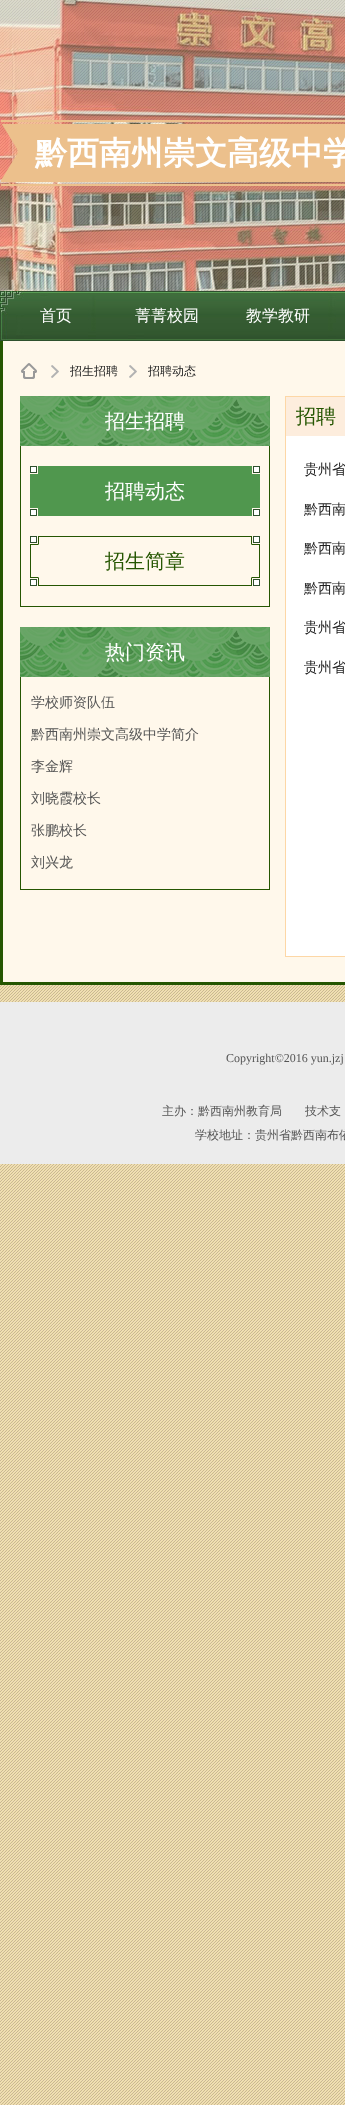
<!DOCTYPE html>
<meta charset="utf-8">
<style>body { margin: 0 } canvas { display: block }</style>
<canvas id="canvas" width="345" height="2105"></canvas>
<img id="img1" src="images/1.png" hidden>
<img id="img2" src="images/2.png" hidden>
<img id="img3" src="images/3.png" hidden>
<img id="img4" src="images/4.png" hidden>
<img id="img5" src="images/5.png" hidden>
<img id="img6" src="images/6.png" hidden>
<img id="img7" src="images/7.png" hidden>
<img id="img8" src="images/8.png" hidden>
<img id="img9" src="images/9.png" hidden>
<img id="img10" src="images/10.png" hidden>
<script>
window.onload = function () {
    const canvas = document.getElementById('canvas');
    const context = canvas.getContext('2d');
    context.miterLimit = 4;
    context.fontKerning = 'normal';

    context.fillStyle = 'rgb(255, 255, 255)';
    context.fillRect(0, 0, 345, 2105);
    context.drawImage(document.getElementById('img1'), 0, 0, 345, 2105);
    context.drawImage(document.getElementById('img2'), 0, 0, 345, 291);
    context.drawImage(document.getElementById('img3'), 20, 120, 325, 66);
    context.drawImage(document.getElementById('img4'), 1, 120, 19, 66);
    context.drawImage(document.getElementById('img5'), 0, 291, 345, 50);
    context.fillStyle = 'rgb(255, 248, 235)';
    context.fillRect(3, 341, 342, 641);
    context.fillStyle = 'rgb(37, 86, 1)';
    context.fillRect(0, 982, 345, 3);
    context.fillRect(0, 341, 3, 644);
    context.drawImage(document.getElementById('img6'), 21, 363, 16, 16);
    context.drawImage(document.getElementById('img7'), 51, 365, 8, 13);
    context.drawImage(document.getElementById('img7'), 129, 365, 8, 13);
    context.drawImage(document.getElementById('img8'), 20, 396, 250, 50);
    context.fillRect(269, 446, 1, 161);
    context.fillRect(20, 606, 250, 1);
    context.fillRect(20, 446, 1, 161);
    context.drawImage(document.getElementById('img9'), 30, 466, 230, 50);
    context.drawImage(document.getElementById('img10'), 30, 536, 230, 50);
    context.drawImage(document.getElementById('img8'), 20, 627, 250, 50);
    context.fillRect(269, 677, 1, 213);
    context.fillRect(20, 889, 250, 1);
    context.fillRect(20, 677, 1, 213);
    context.strokeStyle = 'rgb(253, 215, 166)';
    context.strokeRect(285.5, 396.5, 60, 560);
    context.fillStyle = 'rgb(253, 237, 221)';
    context.fillRect(286, 397, 59, 39);
    context.fillStyle = 'rgb(255, 255, 255)';
    context.fillRect(286, 436, 59, 520);
    context.fillStyle = 'rgb(236, 236, 236)';
    context.fillRect(0, 1002, 345, 162);
    context.font = 'bold 32px WenQuanYi Zen Hei';
    context.fillStyle = 'rgb(255, 255, 255)';
    context.fillText('黔西南州崇文高级中学', 35, 164);
    context.font = '500 16px WenQuanYi Zen Hei';
    context.fillText('首页', 40, 321);
    context.fillText('菁菁校园', 135, 321);
    context.fillText('教学教研', 246, 321);
    context.font = '500 12px WenQuanYi Zen Hei';
    context.fillStyle = 'rgb(34, 34, 34)';
    context.fillText('招生招聘', 70, 375);
    context.fillText('招聘动态', 148, 375);
    context.font = '500 20px WenQuanYi Zen Hei';
    context.fillStyle = 'rgb(255, 255, 255)';
    context.fillText('招生招聘', 105, 428);
    context.fillText('招聘动态', 105, 498);
    context.fillStyle = 'rgb(37, 86, 1)';
    context.fillText('招生简章', 105, 568);
    context.fillStyle = 'rgb(255, 255, 255)';
    context.fillText('热门资讯', 105, 659);
    context.font = '500 14px WenQuanYi Zen Hei';
    context.fillStyle = 'rgb(85, 85, 85)';
    context.fillText('学校师资队伍', 31, 707);
    context.fillText('黔西南州崇文高级中学简介', 31, 739);
    context.fillText('李金辉', 31, 771);
    context.fillText('刘晓霞校长', 31, 803);
    context.fillText('张鹏校长', 31, 835);
    context.fillText('刘兴龙', 31, 867);
    context.font = '500 20px WenQuanYi Zen Hei';
    context.fillStyle = 'rgb(37, 86, 1)';
    context.fillText('招聘', 296, 423);
    context.font = '500 14px WenQuanYi Zen Hei';
    context.fillStyle = 'rgb(34, 34, 34)';
    context.fillText('贵州省', 304, 474);
    context.fillText('黔西南', 304, 514);
    context.fillText('黔西南', 304, 553);
    context.fillText('黔西南', 304, 593);
    context.fillText('贵州省', 304, 632);
    context.fillText('贵州省', 304, 672);
    context.font = '12px Liberation Serif';
    context.fillStyle = 'rgb(85, 85, 85)';
    context.fillText('Copyright©2016 yun.jzj', 226, 1062);
    context.font = '500 12px WenQuanYi Zen Hei';
    context.fillText('主办：黔西南州教育局', 162, 1115);
    context.fillText('技术支', 305, 1115);
    context.fillText('学校地址：贵州省黔西南布依', 195, 1139);
};
</script>
